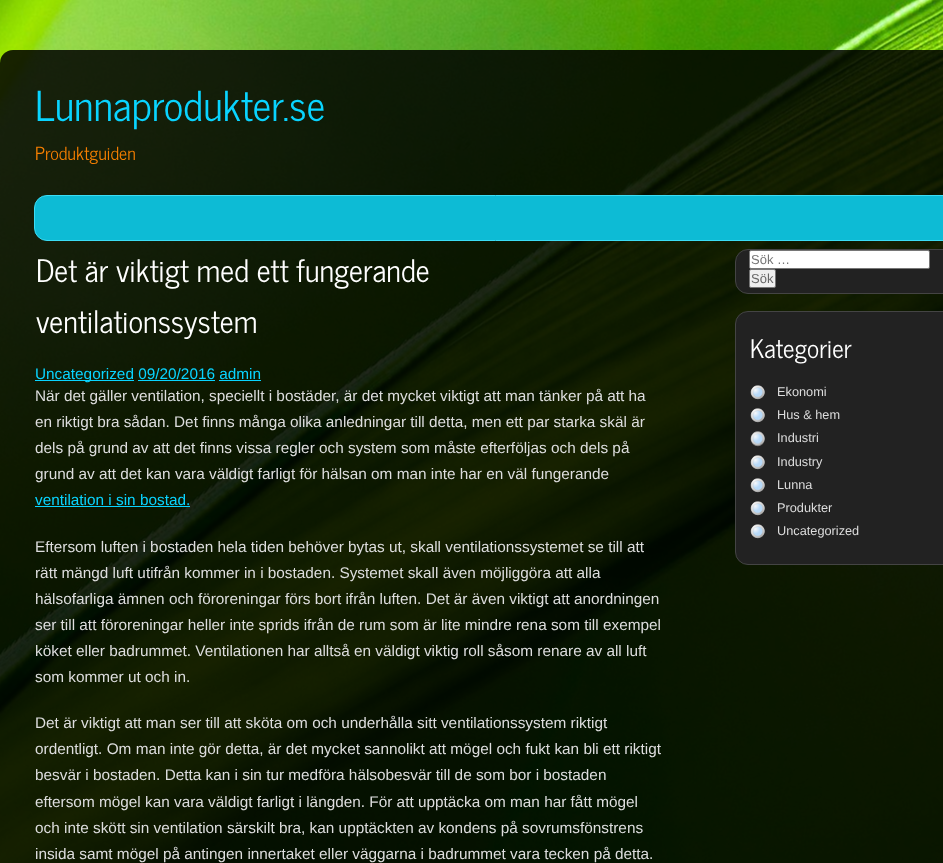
<!DOCTYPE html>
<meta charset="utf-8">
<style>body { margin: 0 } canvas { display: block }</style>
<canvas id="canvas" width="943" height="863"></canvas>
<img id="img1" src="images/1.png" hidden>
<img id="img2" src="images/2.png" hidden>
<img id="img3" src="images/3.png" hidden>
<img id="img4" src="images/4.png" hidden>
<script>
window.onload = function () {
    const canvas = document.getElementById('canvas');
    const context = canvas.getContext('2d');
    context.miterLimit = 4;
    context.fontKerning = 'normal';

    context.fillStyle = 'rgb(255, 255, 255)';
    context.fillRect(0, 0, 943, 863);
    context.drawImage(document.getElementById('img1'), 0, 0, 943, 863);
    context.drawImage(document.getElementById('img2'), 0, 50, 943, 813);
    context.fillStyle = 'rgb(13, 187, 213)';
    context.beginPath();
    context.roundRect(34.5, 195.5, 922, 45, 12.5);
    context.fill();
    context.strokeStyle = 'rgb(59, 221, 245)';
    context.stroke();
    context.fillStyle = 'rgb(9, 212, 255)';
    context.fillRect(35, 380, 99, 1);
    context.fillRect(138, 380, 77, 1);
    context.fillRect(219, 380, 42, 1);
    context.fillRect(35, 506, 155, 1);
    context.fillStyle = 'rgb(34, 34, 34)';
    context.beginPath();
    context.roundRect(735.5, 249.5, 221, 44, 12.5);
    context.fill();
    context.strokeStyle = 'rgb(68, 68, 68)';
    context.stroke();
    context.fillStyle = 'rgb(255, 255, 255)';
    context.beginPath();
    context.roundRect(749.5, 250.5, 180, 18, 1.5);
    context.fill();
    context.strokeStyle = 'rgb(118, 118, 118)';
    context.stroke();
    context.fillStyle = 'rgb(239, 239, 239)';
    context.beginPath();
    context.roundRect(749.5, 269.5, 26, 18, 1.5);
    context.fill();
    context.stroke();
    context.fillStyle = 'rgb(34, 34, 34)';
    context.beginPath();
    context.roundRect(735.5, 311.5, 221, 253, 12.5);
    context.fill();
    context.strokeStyle = 'rgb(68, 68, 68)';
    context.stroke();
    context.drawImage(document.getElementById('img3'), 750, 385, 15, 15);
    context.drawImage(document.getElementById('img3'), 750, 408, 15, 15);
    context.drawImage(document.getElementById('img4'), 750, 431, 15, 16);
    context.drawImage(document.getElementById('img3'), 750, 455, 15, 15);
    context.drawImage(document.getElementById('img3'), 750, 478, 15, 15);
    context.drawImage(document.getElementById('img3'), 750, 501, 15, 15);
    context.drawImage(document.getElementById('img3'), 750, 524, 15, 15);
    context.font = '41px News Cycle';
    context.fillStyle = 'rgb(9, 212, 255)';
    context.fillText('Lunnaprodukter.se', 35, 121);
    context.font = '18px News Cycle';
    context.fillStyle = 'rgb(246, 127, 0)';
    context.fillText('Produktguiden', 35, 160);
    context.font = '30.75px News Cycle';
    context.fillStyle = 'rgb(255, 255, 255)';
    context.fillText('Det är viktigt med ett fungerande', 36, 282);
    context.fillText('ventilationssystem', 36, 333);
    context.font = '15.35px Liberation Sans';
    context.fillStyle = 'rgb(9, 212, 255)';
    context.fillText('Uncategorized 09/20/2016 admin', 35, 379);
    context.fillStyle = 'rgb(221, 221, 221)';
    context.fillText('När det gäller ventilation, speciellt i bostäder, är det mycket viktigt att man tänker på att ha', 35, 401);
    context.fillText('en riktigt bra sådan. Det finns många olika anledningar till detta, men ett par starka skäl är', 35, 427);
    context.fillText('dels på grund av att det finns vissa regler och system som måste efterföljas och dels på', 35, 453);
    context.fillText('grund av att det kan vara väldigt farligt för hälsan om man inte har en väl fungerande', 35, 479);
    context.fillStyle = 'rgb(9, 212, 255)';
    context.fillText('ventilation i sin bostad.', 35, 505);
    context.fillStyle = 'rgb(221, 221, 221)';
    context.fillText('Eftersom luften i bostaden hela tiden behöver bytas ut, skall ventilationssystemet se till att', 35, 552);
    context.fillText('rätt mängd luft utifrån kommer in i bostaden. Systemet skall även möjliggöra att alla', 35, 578);
    context.fillText('hälsofarliga ämnen och föroreningar förs bort ifrån luften. Det är även viktigt att anordningen', 35, 604);
    context.fillText('ser till att föroreningar heller inte sprids ifrån de rum som är lite mindre rena som till exempel', 35, 630);
    context.fillText('köket eller badrummet. Ventilationen har alltså en väldigt viktig roll såsom renare av all luft', 35, 656);
    context.fillText('som kommer ut och in.', 35, 682);
    context.fillText('Det är viktigt att man ser till att sköta om och underhålla sitt ventilationssystem riktigt', 35, 728);
    context.fillText('ordentligt. Om man inte gör detta, är det mycket sannolikt att mögel och fukt kan bli ett riktigt', 35, 754);
    context.fillText('besvär i bostaden. Detta kan i sin tur medföra hälsobesvär till de som bor i bostaden', 35, 780);
    context.fillText('eftersom mögel kan vara väldigt farligt i längden. För att upptäcka om man har fått mögel', 35, 807);
    context.fillText('och inte skött sin ventilation särskilt bra, kan upptäckten av kondens på sovrumsfönstrens', 35, 833);
    context.fillText('insida samt mögel på antingen innertaket eller väggarna i badrummet vara tecken på detta.', 35, 859);
    context.font = '13px Liberation Sans';
    context.fillStyle = 'rgb(117, 117, 117)';
    context.fillText('Sök …', 751, 264);
    context.fillStyle = 'rgb(102, 102, 102)';
    context.fillText('Sök', 751, 283);
    context.font = '25.5px News Cycle';
    context.fillStyle = 'rgb(255, 255, 255)';
    context.fillText('Kategorier', 750, 358);
    context.font = '12.75px Liberation Sans';
    context.fillStyle = 'rgb(221, 221, 221)';
    context.fillText('Ekonomi', 777, 396);
    context.fillText('Hus & hem', 777, 419);
    context.fillText('Industri', 777, 442);
    context.fillText('Industry', 777, 466);
    context.fillText('Lunna', 777, 489);
    context.fillText('Produkter', 777, 512);
    context.fillText('Uncategorized', 777, 535);
};
</script>
